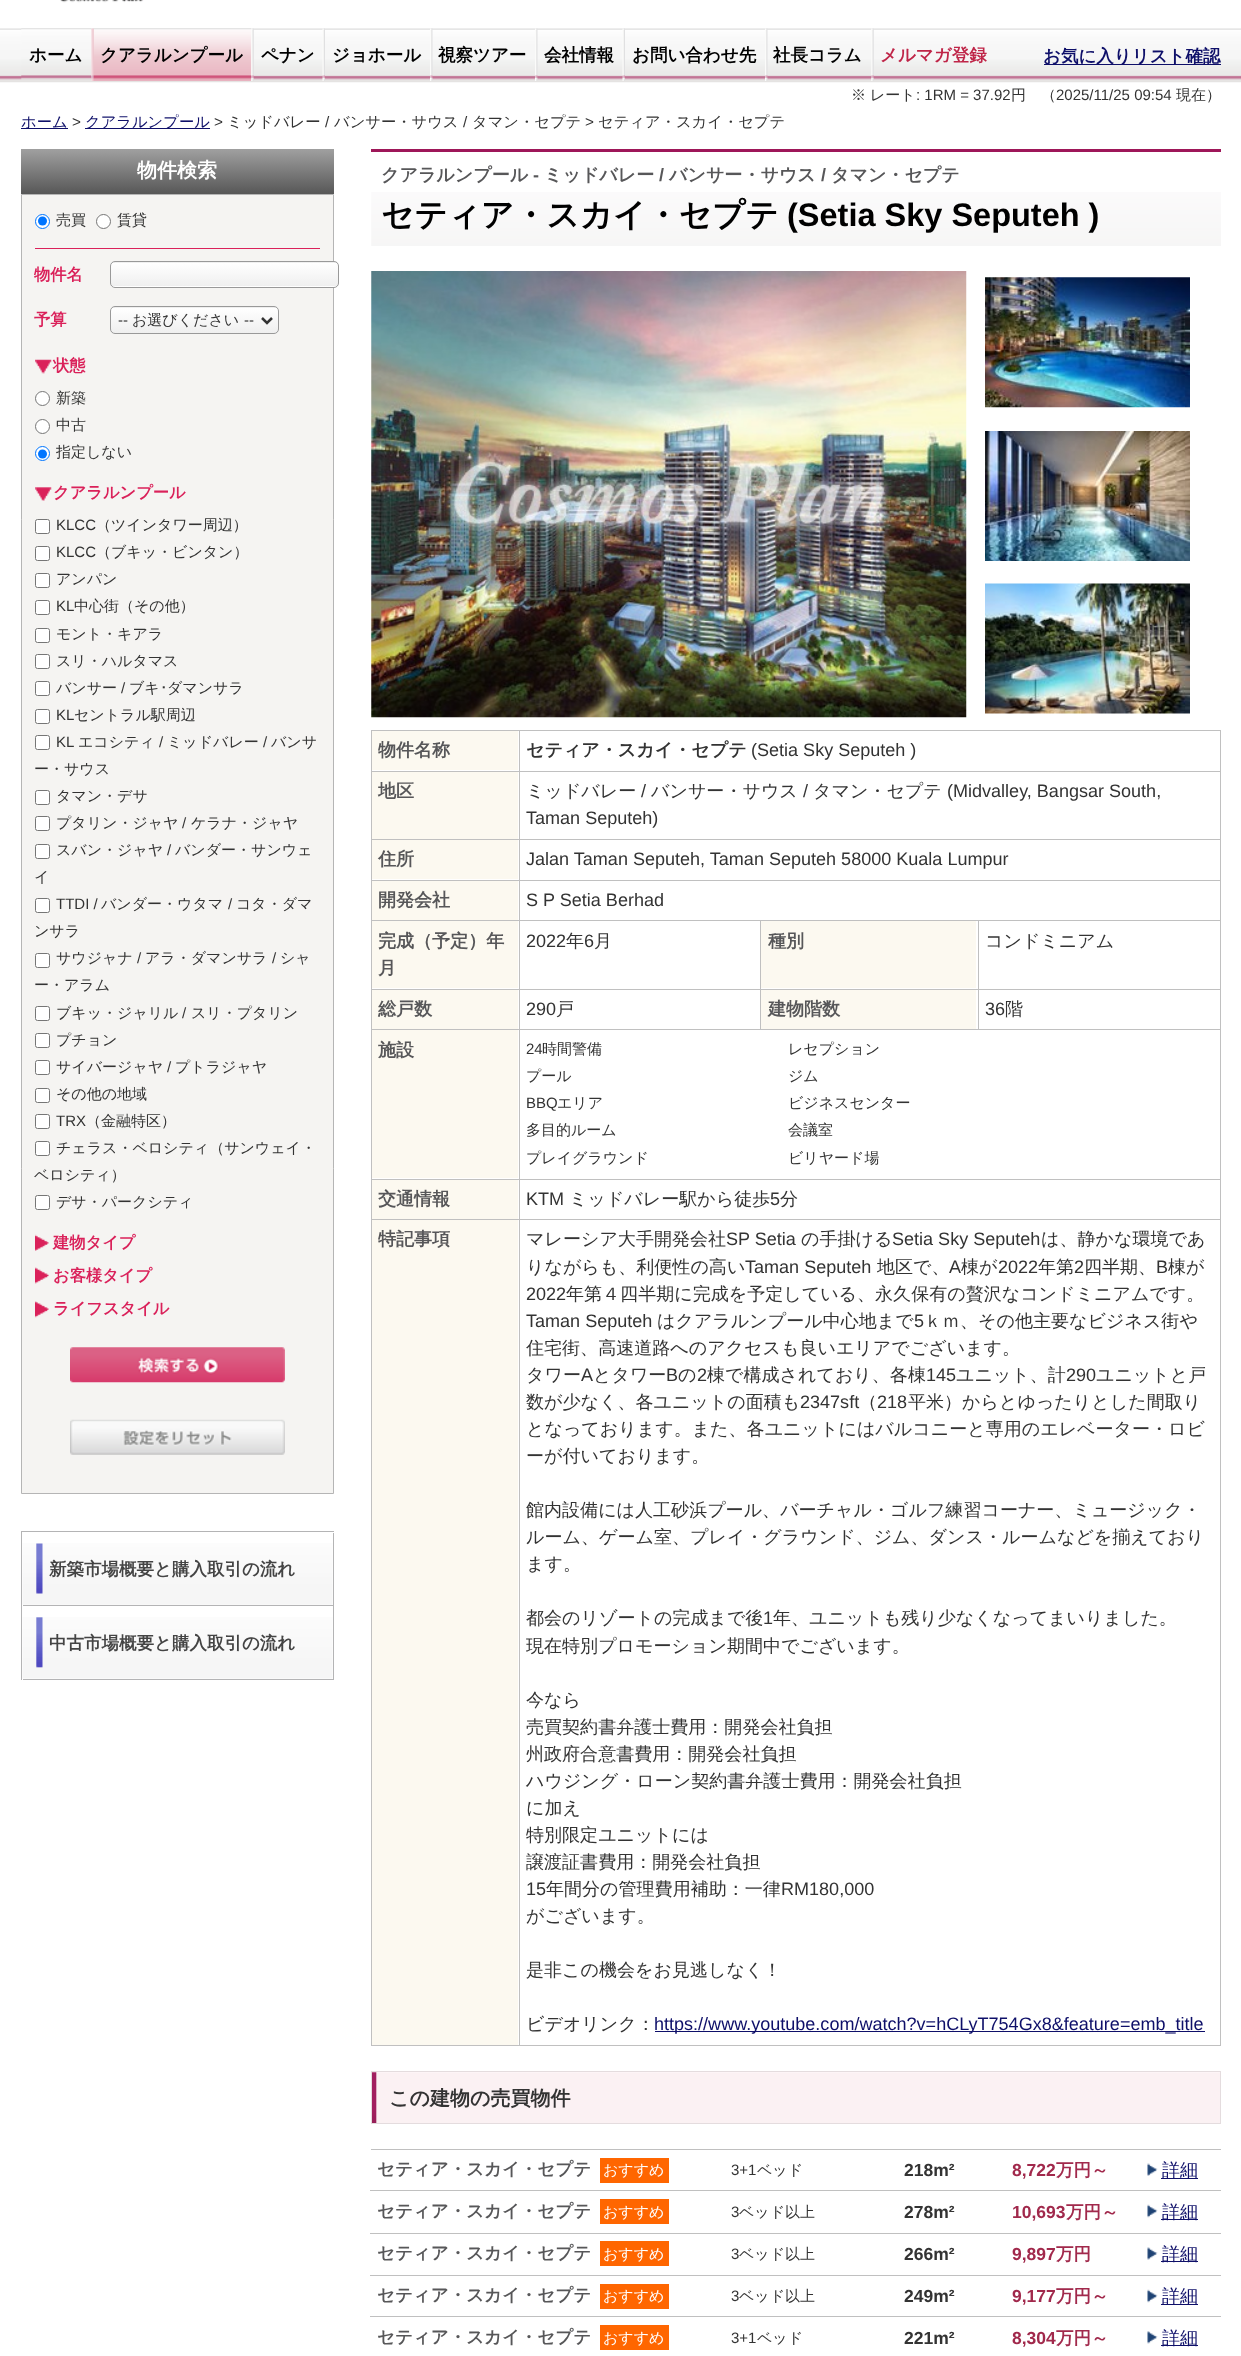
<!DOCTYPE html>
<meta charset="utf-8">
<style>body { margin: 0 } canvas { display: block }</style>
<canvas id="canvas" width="1241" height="2356"></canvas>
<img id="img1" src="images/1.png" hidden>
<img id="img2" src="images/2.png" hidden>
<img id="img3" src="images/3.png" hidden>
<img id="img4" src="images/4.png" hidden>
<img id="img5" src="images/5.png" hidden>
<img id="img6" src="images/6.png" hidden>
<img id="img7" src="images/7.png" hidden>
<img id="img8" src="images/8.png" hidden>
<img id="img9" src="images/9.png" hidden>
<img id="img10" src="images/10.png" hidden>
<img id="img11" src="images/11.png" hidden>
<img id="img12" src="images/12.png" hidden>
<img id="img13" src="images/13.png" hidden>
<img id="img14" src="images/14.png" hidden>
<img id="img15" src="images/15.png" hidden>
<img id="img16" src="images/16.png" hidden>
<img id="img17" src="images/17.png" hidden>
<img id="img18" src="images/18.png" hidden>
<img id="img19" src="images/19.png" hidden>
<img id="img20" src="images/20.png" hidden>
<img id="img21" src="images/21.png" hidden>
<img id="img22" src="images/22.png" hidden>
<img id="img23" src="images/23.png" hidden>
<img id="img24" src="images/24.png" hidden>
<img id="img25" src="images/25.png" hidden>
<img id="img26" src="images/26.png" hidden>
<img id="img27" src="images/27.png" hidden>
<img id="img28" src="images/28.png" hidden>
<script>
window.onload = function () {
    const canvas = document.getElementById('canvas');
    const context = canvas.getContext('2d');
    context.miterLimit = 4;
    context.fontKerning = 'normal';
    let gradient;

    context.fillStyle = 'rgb(255, 255, 255)';
    context.fillRect(0, 0, 1241, 2356);
    context.drawImage(document.getElementById('img1'), 60, 0, 84, 3);
    context.drawImage(document.getElementById('img2'), 0, 28, 1241, 55);
    context.drawImage(document.getElementById('img3'), 21, 28, 71, 52);
    context.drawImage(document.getElementById('img4'), 91, 28, 161, 53);
    context.drawImage(document.getElementById('img5'), 251, 28, 3, 53);
    context.drawImage(document.getElementById('img6'), 322, 28, 3, 53);
    context.drawImage(document.getElementById('img7'), 430, 28, 3, 53);
    context.drawImage(document.getElementById('img7'), 535, 28, 3, 53);
    context.drawImage(document.getElementById('img6'), 622, 28, 3, 53);
    context.drawImage(document.getElementById('img7'), 765, 28, 3, 53);
    context.drawImage(document.getElementById('img8'), 871, 28, 3, 53);
    context.fillStyle = 'rgb(14, 15, 105)';
    context.fillRect(1044, 64, 177, 1);
    context.fillRect(21, 128, 47, 1);
    context.fillRect(85, 128, 125, 1);
    gradient = context.createLinearGradient(178, 149, 178, 194);
    gradient.addColorStop(0, 'rgb(160, 160, 160)');
    gradient.addColorStop(1, 'rgb(87, 87, 87)');
    context.fillStyle = gradient;
    context.fillRect(21, 149, 313, 45);
    context.fillStyle = 'rgb(245, 244, 242)';
    context.beginPath();
    context.rect(21.5, 194.5, 312, 1299);
    context.fill();
    context.strokeStyle = 'rgb(181, 181, 181)';
    context.stroke();
    context.fillStyle = 'rgb(218, 33, 90)';
    context.fillRect(35, 248, 285, 1);
    context.fillStyle = 'rgb(255, 255, 255)';
    context.beginPath();
    context.arc(42.5, 221.5, 7, 0, 2 * Math.PI);
    context.fill();
    context.strokeStyle = 'rgb(0, 117, 255)';
    context.stroke();
    context.fillStyle = 'rgb(0, 117, 255)';
    context.beginPath();
    context.arc(42.5, 221, 4.5, 0, 2 * Math.PI);
    context.fill();
    context.fillStyle = 'rgb(255, 255, 255)';
    context.beginPath();
    context.arc(103.5, 221.5, 7, 0, 2 * Math.PI);
    context.fill();
    context.strokeStyle = 'rgb(118, 118, 118)';
    context.stroke();
    context.save();
    context.beginPath();
    context.roundRect(110, 261, 229, 27, 5);
    context.clip();
    gradient = context.createLinearGradient(224, 239, 224, 263);
    gradient.addColorStop(0, 'rgb(255, 255, 255)');
    gradient.addColorStop(1, 'rgb(239, 239, 239)');
    context.fillStyle = gradient;
    context.fillRect(110, 261, 229, 2);
    gradient = context.createLinearGradient(224, 263, 224, 286);
    gradient.addColorStop(0, 'rgb(255, 255, 255)');
    gradient.addColorStop(1, 'rgb(239, 239, 239)');
    context.fillStyle = gradient;
    context.fillRect(110, 263, 229, 23);
    gradient = context.createLinearGradient(224, 286, 224, 310);
    gradient.addColorStop(0, 'rgb(255, 255, 255)');
    gradient.addColorStop(1, 'rgb(239, 239, 239)');
    context.fillStyle = gradient;
    context.fillRect(110, 286, 229, 2);
    context.restore();
    context.beginPath();
    context.roundRect(110.5, 261.5, 228, 26, 4.5);
    context.strokeStyle = 'rgb(153, 153, 153)';
    context.stroke();
    context.save();
    context.beginPath();
    context.roundRect(110, 306, 169, 28, 5);
    context.clip();
    gradient = context.createLinearGradient(194, 283, 194, 308);
    gradient.addColorStop(0, 'rgb(255, 255, 255)');
    gradient.addColorStop(1, 'rgb(239, 239, 239)');
    context.fillStyle = gradient;
    context.fillRect(110, 306, 169, 2);
    gradient = context.createLinearGradient(194, 308, 194, 333);
    gradient.addColorStop(0, 'rgb(255, 255, 255)');
    gradient.addColorStop(1, 'rgb(239, 239, 239)');
    context.fillStyle = gradient;
    context.fillRect(110, 308, 169, 25);
    context.restore();
    context.beginPath();
    context.roundRect(110.5, 306.5, 168, 27, 4.5);
    context.stroke();
    context.beginPath();
    context.moveTo(262, 318);
    context.lineTo(267, 323);
    context.lineTo(272, 318);
    context.strokeStyle = 'rgb(51, 51, 51)';
    context.lineWidth = 2.5;
    context.stroke();
    context.drawImage(document.getElementById('img9'), 35, 359, 17, 15);
    context.beginPath();
    context.arc(42.5, 398.5, 7, 0, 2 * Math.PI);
    context.fill();
    context.strokeStyle = 'rgb(118, 118, 118)';
    context.lineWidth = 1;
    context.stroke();
    context.beginPath();
    context.arc(42.5, 426.5, 7, 0, 2 * Math.PI);
    context.fill();
    context.stroke();
    context.beginPath();
    context.arc(42.5, 453.5, 7, 0, 2 * Math.PI);
    context.fill();
    context.strokeStyle = 'rgb(0, 117, 255)';
    context.stroke();
    context.fillStyle = 'rgb(0, 117, 255)';
    context.beginPath();
    context.arc(42.5, 454, 4.5, 0, 2 * Math.PI);
    context.fill();
    context.drawImage(document.getElementById('img10'), 35, 487, 17, 14);
    context.fillStyle = 'rgb(255, 255, 255)';
    context.beginPath();
    context.roundRect(35.5, 519.5, 14, 14, 2);
    context.fill();
    context.strokeStyle = 'rgb(118, 118, 118)';
    context.stroke();
    context.beginPath();
    context.roundRect(35.5, 546.5, 14, 14, 2);
    context.fill();
    context.stroke();
    context.beginPath();
    context.roundRect(35.5, 573.5, 14, 14, 2);
    context.fill();
    context.stroke();
    context.beginPath();
    context.roundRect(35.5, 600.5, 14, 14, 2);
    context.fill();
    context.stroke();
    context.beginPath();
    context.roundRect(35.5, 628.5, 14, 14, 2);
    context.fill();
    context.stroke();
    context.beginPath();
    context.roundRect(35.5, 654.5, 14, 14, 2);
    context.fill();
    context.stroke();
    context.beginPath();
    context.roundRect(35.5, 681.5, 14, 14, 2);
    context.fill();
    context.stroke();
    context.beginPath();
    context.roundRect(35.5, 709.5, 14, 14, 2);
    context.fill();
    context.stroke();
    context.beginPath();
    context.roundRect(35.5, 735.5, 14, 14, 2);
    context.fill();
    context.stroke();
    context.beginPath();
    context.roundRect(35.5, 790.5, 14, 14, 2);
    context.fill();
    context.stroke();
    context.beginPath();
    context.roundRect(35.5, 816.5, 14, 14, 2);
    context.fill();
    context.stroke();
    context.beginPath();
    context.roundRect(35.5, 844.5, 14, 14, 2);
    context.fill();
    context.stroke();
    context.beginPath();
    context.roundRect(35.5, 898.5, 14, 14, 2);
    context.fill();
    context.stroke();
    context.beginPath();
    context.roundRect(35.5, 953.5, 14, 14, 2);
    context.fill();
    context.stroke();
    context.beginPath();
    context.roundRect(35.5, 1006.5, 14, 14, 2);
    context.fill();
    context.stroke();
    context.beginPath();
    context.roundRect(35.5, 1033.5, 14, 14, 2);
    context.fill();
    context.stroke();
    context.beginPath();
    context.roundRect(35.5, 1060.5, 14, 14, 2);
    context.fill();
    context.stroke();
    context.beginPath();
    context.roundRect(35.5, 1088.5, 14, 14, 2);
    context.fill();
    context.stroke();
    context.beginPath();
    context.roundRect(35.5, 1114.5, 14, 14, 2);
    context.fill();
    context.stroke();
    context.beginPath();
    context.roundRect(35.5, 1141.5, 14, 14, 2);
    context.fill();
    context.stroke();
    context.beginPath();
    context.roundRect(35.5, 1195.5, 14, 14, 2);
    context.fill();
    context.stroke();
    context.drawImage(document.getElementById('img11'), 35, 1234, 14, 17);
    context.drawImage(document.getElementById('img12'), 35, 1267, 14, 17);
    context.drawImage(document.getElementById('img13'), 35, 1301, 14, 17);
    context.drawImage(document.getElementById('img14'), 70, 1347, 215, 36);
    context.drawImage(document.getElementById('img15'), 70, 1419, 215, 36);
    context.fillStyle = 'rgb(180, 180, 181)';
    context.fillRect(21, 1531, 313, 1);
    context.fillRect(21, 1531, 1, 149);
    context.fillRect(333, 1533, 1, 147);
    context.fillRect(23, 1605, 311, 1);
    context.drawImage(document.getElementById('img16'), 22, 1543, 311, 62);
    context.fillRect(23, 1679, 311, 1);
    context.drawImage(document.getElementById('img17'), 22, 1617, 311, 62);
    context.drawImage(document.getElementById('img18'), 371, 192, 850, 54);
    context.fillStyle = 'rgb(158, 23, 89)';
    context.fillRect(371, 149, 850, 3);
    context.drawImage(document.getElementById('img19'), 371, 271, 596, 447);
    context.drawImage(document.getElementById('img20'), 985, 277, 205, 131);
    context.drawImage(document.getElementById('img21'), 985, 431, 205, 130);
    context.drawImage(document.getElementById('img22'), 985, 583, 205, 131);
    context.fillStyle = 'rgb(192, 192, 192)';
    context.fillRect(371, 730, 850, 1);
    context.fillRect(371, 730, 1, 1316);
    context.fillStyle = 'rgb(252, 249, 240)';
    context.fillRect(372, 731, 146, 39);
    context.fillStyle = 'rgb(192, 192, 192)';
    context.fillRect(1220, 730, 1, 1316);
    context.fillRect(978, 1029, 243, 1);
    context.fillRect(978, 989, 1, 41);
    context.fillRect(978, 989, 243, 1);
    context.fillRect(978, 920, 1, 70);
    context.fillRect(760, 1029, 219, 1);
    context.fillRect(760, 989, 1, 41);
    context.fillRect(760, 989, 219, 1);
    context.fillRect(760, 920, 1, 70);
    context.fillRect(519, 2045, 702, 1);
    context.fillRect(519, 1219, 1, 827);
    context.fillRect(519, 1219, 702, 1);
    context.fillRect(519, 1179, 1, 41);
    context.fillRect(519, 1179, 702, 1);
    context.fillRect(519, 1029, 1, 151);
    context.fillRect(519, 1029, 242, 1);
    context.fillRect(519, 989, 1, 41);
    context.fillRect(519, 989, 242, 1);
    context.fillRect(519, 920, 1, 70);
    context.fillRect(519, 920, 702, 1);
    context.fillRect(519, 880, 1, 41);
    context.fillRect(519, 880, 702, 1);
    context.fillRect(519, 839, 1, 42);
    context.fillRect(519, 839, 702, 1);
    context.fillRect(519, 771, 1, 69);
    context.fillRect(519, 771, 702, 1);
    context.fillRect(519, 730, 1, 43);
    context.fillRect(371, 771, 149, 1);
    context.fillStyle = 'rgb(252, 249, 240)';
    context.fillRect(372, 772, 146, 67);
    context.fillStyle = 'rgb(192, 192, 192)';
    context.fillRect(371, 839, 149, 1);
    context.fillStyle = 'rgb(252, 249, 240)';
    context.fillRect(372, 840, 146, 39);
    context.fillStyle = 'rgb(192, 192, 192)';
    context.fillRect(371, 880, 149, 1);
    context.fillStyle = 'rgb(252, 249, 240)';
    context.fillRect(372, 881, 146, 39);
    context.fillStyle = 'rgb(192, 192, 192)';
    context.fillRect(371, 920, 149, 1);
    context.fillStyle = 'rgb(252, 249, 240)';
    context.fillRect(372, 921, 146, 67);
    context.fillStyle = 'rgb(192, 192, 192)';
    context.fillRect(371, 989, 149, 1);
    context.fillStyle = 'rgb(252, 249, 240)';
    context.fillRect(761, 921, 215, 67);
    context.fillRect(372, 990, 146, 39);
    context.fillStyle = 'rgb(192, 192, 192)';
    context.fillRect(371, 1029, 149, 1);
    context.fillStyle = 'rgb(252, 249, 240)';
    context.fillRect(761, 990, 215, 39);
    context.fillRect(372, 1030, 146, 148);
    context.fillStyle = 'rgb(192, 192, 192)';
    context.fillRect(371, 1179, 149, 1);
    context.fillStyle = 'rgb(252, 249, 240)';
    context.fillRect(372, 1180, 146, 39);
    context.fillStyle = 'rgb(192, 192, 192)';
    context.fillRect(371, 1219, 149, 1);
    context.fillStyle = 'rgb(252, 249, 240)';
    context.fillRect(372, 1220, 146, 825);
    context.fillStyle = 'rgb(192, 192, 192)';
    context.fillRect(371, 2045, 149, 1);
    context.fillStyle = 'rgb(14, 15, 105)';
    context.fillRect(655, 2031, 550, 1);
    context.drawImage(document.getElementById('img23'), 372, 2072, 848, 51);
    context.strokeStyle = 'rgb(228, 220, 222)';
    context.strokeRect(371.5, 2071.5, 849, 52);
    context.fillStyle = 'rgb(192, 192, 192)';
    context.fillRect(371, 2149, 850, 1);
    context.fillStyle = 'rgb(255, 102, 0)';
    context.fillRect(600, 2158, 69, 25);
    context.fillStyle = 'rgb(192, 192, 192)';
    context.fillRect(370, 2190, 851, 1);
    context.drawImage(document.getElementById('img24'), 1147, 2163, 11, 13);
    context.fillStyle = 'rgb(14, 15, 105)';
    context.fillRect(1161, 2178, 37, 1);
    context.fillStyle = 'rgb(255, 102, 0)';
    context.fillRect(600, 2199, 69, 25);
    context.fillStyle = 'rgb(192, 192, 192)';
    context.fillRect(370, 2233, 851, 1);
    context.drawImage(document.getElementById('img25'), 1147, 2204, 11, 14);
    context.fillStyle = 'rgb(14, 15, 105)';
    context.fillRect(1161, 2219, 37, 1);
    context.fillStyle = 'rgb(255, 102, 0)';
    context.fillRect(600, 2241, 69, 25);
    context.fillStyle = 'rgb(192, 192, 192)';
    context.fillRect(370, 2275, 851, 1);
    context.drawImage(document.getElementById('img26'), 1147, 2247, 11, 13);
    context.fillStyle = 'rgb(14, 15, 105)';
    context.fillRect(1161, 2261, 37, 1);
    context.fillStyle = 'rgb(255, 102, 0)';
    context.fillRect(600, 2284, 69, 25);
    context.fillStyle = 'rgb(192, 192, 192)';
    context.fillRect(370, 2316, 851, 1);
    context.drawImage(document.getElementById('img27'), 1147, 2289, 11, 14);
    context.fillStyle = 'rgb(14, 15, 105)';
    context.fillRect(1161, 2304, 37, 1);
    context.fillStyle = 'rgb(255, 102, 0)';
    context.fillRect(600, 2325, 69, 25);
    context.drawImage(document.getElementById('img28'), 1147, 2331, 11, 13);
    context.fillStyle = 'rgb(14, 15, 105)';
    context.fillRect(1161, 2345, 37, 1);
    context.font = 'bold 17.5px WenQuanYi Zen Hei';
    context.fillStyle = 'rgb(0, 0, 0)';
    context.fillText('ホーム', 29, 61);
    context.fillText('クアラルンプール', 100, 61);
    context.fillText('ペナン', 261, 61);
    context.fillText('ジョホール', 332, 61);
    context.fillText('視察ツアー', 438, 61);
    context.fillText('会社情報', 544, 61);
    context.fillText('お問い合わせ先', 632, 61);
    context.fillText('社長コラム', 773, 61);
    context.fillStyle = 'rgb(191, 37, 72)';
    context.fillText('メルマガ登録', 880, 61);
    context.fillStyle = 'rgb(14, 15, 105)';
    context.fillText('お気に入りリスト確認', 1043, 62);
    context.font = '500 15px WenQuanYi Zen Hei';
    context.fillStyle = 'rgb(51, 51, 51)';
    context.fillText('※', 851, 100);
    context.fillText('レート', 870, 100);
    context.font = '15px Liberation Sans';
    context.fillText(': 1RM = 37.92', 916, 100);
    context.font = '500 15px WenQuanYi Zen Hei';
    context.fillText('円　（', 1011, 100);
    context.font = '15px Liberation Sans';
    context.fillText('2025/11/25 09:54', 1056, 100);
    context.font = '500 15px WenQuanYi Zen Hei';
    context.fillText('現在）', 1176, 100);
    context.font = '500 15.3px WenQuanYi Zen Hei';
    context.fillStyle = 'rgb(14, 15, 105)';
    context.fillText('ホーム', 21, 127);
    context.font = '15.3px Liberation Sans';
    context.fillStyle = 'rgb(51, 51, 51)';
    context.fillText('>', 72, 127);
    context.font = '500 15.3px WenQuanYi Zen Hei';
    context.fillStyle = 'rgb(14, 15, 105)';
    context.fillText('クアラルンプール', 85, 127);
    context.font = '15.3px Liberation Sans';
    context.fillStyle = 'rgb(51, 51, 51)';
    context.fillText('>', 214, 127);
    context.font = '500 15.3px WenQuanYi Zen Hei';
    context.fillText('ミッドバレー', 227, 127);
    context.font = '15.3px Liberation Sans';
    context.fillText('/', 325, 127);
    context.font = '500 15.3px WenQuanYi Zen Hei';
    context.fillText('バンサー・サウス', 334, 127);
    context.font = '15.3px Liberation Sans';
    context.fillText('/', 463, 127);
    context.font = '500 15.3px WenQuanYi Zen Hei';
    context.fillText('タマン・セプテ', 472, 127);
    context.font = '15.3px Liberation Sans';
    context.fillText('>', 585, 127);
    context.font = '500 15.3px WenQuanYi Zen Hei';
    context.fillText('セティア・スカイ・セプテ', 598, 127);
    context.font = 'bold 20px WenQuanYi Zen Hei';
    context.fillStyle = 'rgb(255, 255, 255)';
    context.fillText('物件検索', 137, 177);
    context.font = '500 15px WenQuanYi Zen Hei';
    context.fillStyle = 'rgb(51, 51, 51)';
    context.fillText('売買', 56, 225);
    context.fillText('賃貸', 117, 225);
    context.font = 'bold 16.25px WenQuanYi Zen Hei';
    context.fillStyle = 'rgb(218, 33, 90)';
    context.fillText('物件名', 34, 280);
    context.fillText('予算', 34, 325);
    context.font = '15px Liberation Sans';
    context.fillStyle = 'rgb(51, 51, 51)';
    context.fillText('--', 118, 325);
    context.font = '500 15px WenQuanYi Zen Hei';
    context.fillText('お選びください', 132, 325);
    context.font = '15px Liberation Sans';
    context.fillText('--', 244, 325);
    context.font = 'bold 16.25px WenQuanYi Zen Hei';
    context.fillStyle = 'rgb(218, 33, 90)';
    context.fillText('状態', 53, 371);
    context.font = '500 15px WenQuanYi Zen Hei';
    context.fillStyle = 'rgb(51, 51, 51)';
    context.fillText('新築', 56, 403);
    context.fillText('中古', 56, 430);
    context.fillText('指定しない', 56, 457);
    context.font = 'bold 16.25px WenQuanYi Zen Hei';
    context.fillStyle = 'rgb(218, 33, 90)';
    context.fillText('クアラルンプール', 53, 498);
    context.font = '15px Liberation Sans';
    context.fillStyle = 'rgb(51, 51, 51)';
    context.fillText('KLCC', 56, 530);
    context.font = '500 15px WenQuanYi Zen Hei';
    context.fillText('（ツインタワー周辺）', 96, 530);
    context.font = '15px Liberation Sans';
    context.fillText('KLCC', 56, 557);
    context.font = '500 15px WenQuanYi Zen Hei';
    context.fillText('（ブキッ・ビンタン）', 96, 557);
    context.fillText('アンパン', 56, 584);
    context.font = '15px Liberation Sans';
    context.fillText('KL', 56, 611);
    context.font = '500 15px WenQuanYi Zen Hei';
    context.fillText('中心街（その他）', 74, 611);
    context.fillText('モント・キアラ', 56, 639);
    context.fillText('スリ・ハルタマス', 56, 666);
    context.fillText('バンサー', 56, 693);
    context.font = '15px Liberation Sans';
    context.fillText('/', 121, 693);
    context.font = '500 15px WenQuanYi Zen Hei';
    context.fillText('ブキ', 129, 693);
    context.font = '15px IPAPGothic';
    context.fillText('･', 160, 693);
    context.font = '500 15px WenQuanYi Zen Hei';
    context.fillText('ダマンサラ', 167, 693);
    context.font = '15px Liberation Sans';
    context.fillText('KL', 56, 720);
    context.font = '500 15px WenQuanYi Zen Hei';
    context.fillText('セントラル駅周辺', 74, 720);
    context.font = '15px Liberation Sans';
    context.fillText('KL', 56, 747);
    context.font = '500 15px WenQuanYi Zen Hei';
    context.fillText('エコシティ', 78, 747);
    context.font = '15px Liberation Sans';
    context.fillText('/', 159, 747);
    context.font = '500 15px WenQuanYi Zen Hei';
    context.fillText('ミッドバレー', 167, 747);
    context.font = '15px Liberation Sans';
    context.fillText('/', 263, 747);
    context.font = '500 15px WenQuanYi Zen Hei';
    context.fillText('バンサ', 271, 747);
    context.fillText('ー・サウス', 34, 774);
    context.fillText('タマン・デサ', 56, 801);
    context.fillText('プタリン・ジャヤ', 56, 828);
    context.font = '15px Liberation Sans';
    context.fillText('/', 182, 828);
    context.font = '500 15px WenQuanYi Zen Hei';
    context.fillText('ケラナ・ジャヤ', 191, 828);
    context.fillText('スバン・ジャヤ', 56, 855);
    context.font = '15px Liberation Sans';
    context.fillText('/', 167, 855);
    context.font = '500 15px WenQuanYi Zen Hei';
    context.fillText('バンダー・サンウェ', 175, 855);
    context.fillText('イ', 34, 882);
    context.font = '15px Liberation Sans';
    context.fillText('TTDI /', 56, 909);
    context.font = '500 15px WenQuanYi Zen Hei';
    context.fillText('バンダー・ウタマ', 101, 909);
    context.font = '15px Liberation Sans';
    context.fillText('/', 228, 909);
    context.font = '500 15px WenQuanYi Zen Hei';
    context.fillText('コタ・ダマ', 236, 909);
    context.fillText('ンサラ', 34, 936);
    context.fillText('サウジャナ', 56, 963);
    context.font = '15px Liberation Sans';
    context.fillText('/', 137, 963);
    context.font = '500 15px WenQuanYi Zen Hei';
    context.fillText('アラ・ダマンサラ', 145, 963);
    context.font = '15px Liberation Sans';
    context.fillText('/', 272, 963);
    context.font = '500 15px WenQuanYi Zen Hei';
    context.fillText('シャ', 280, 963);
    context.fillText('ー・アラム', 34, 990);
    context.fillText('ブキッ・ジャリル', 56, 1018);
    context.font = '15px Liberation Sans';
    context.fillText('/', 182, 1018);
    context.font = '500 15px WenQuanYi Zen Hei';
    context.fillText('スリ・プタリン', 191, 1018);
    context.fillText('プチョン', 56, 1045);
    context.fillText('サイバージャヤ', 56, 1072);
    context.font = '15px Liberation Sans';
    context.fillText('/', 167, 1072);
    context.font = '500 15px WenQuanYi Zen Hei';
    context.fillText('プトラジャヤ', 175, 1072);
    context.fillText('その他の地域', 56, 1099);
    context.font = '15px Liberation Sans';
    context.fillText('TRX', 56, 1126);
    context.font = '500 15px WenQuanYi Zen Hei';
    context.fillText('（金融特区）', 86, 1126);
    context.fillText('チェラス・ベロシティ（サンウェイ・', 56, 1153);
    context.fillText('ベロシティ）', 34, 1180);
    context.fillText('デサ・パークシティ', 56, 1207);
    context.font = 'bold 16.25px WenQuanYi Zen Hei';
    context.fillStyle = 'rgb(218, 33, 90)';
    context.fillText('建物タイプ', 53, 1248);
    context.fillText('お客様タイプ', 53, 1281);
    context.fillText('ライフスタイル', 53, 1314);
    context.font = 'bold 17.5px WenQuanYi Zen Hei';
    context.fillStyle = 'rgb(68, 68, 68)';
    context.fillText('新築市場概要と購入取引の流れ', 49, 1575);
    context.fillText('中古市場概要と購入取引の流れ', 49, 1649);
    context.font = 'bold 18.05px WenQuanYi Zen Hei';
    context.fillStyle = 'rgb(87, 87, 89)';
    context.fillText('クアラルンプール', 381, 181);
    context.font = 'bold 18.05px Liberation Sans';
    context.fillText('-', 533, 181);
    context.font = 'bold 18.05px WenQuanYi Zen Hei';
    context.fillText('ミッドバレー', 544, 181);
    context.font = 'bold 18.05px Liberation Sans';
    context.fillText('/', 659, 181);
    context.font = 'bold 18.05px WenQuanYi Zen Hei';
    context.fillText('バンサー・サウス', 669, 181);
    context.font = 'bold 18.05px Liberation Sans';
    context.fillText('/', 821, 181);
    context.font = 'bold 18.05px WenQuanYi Zen Hei';
    context.fillText('タマン・セプテ', 831, 181);
    context.font = 'bold 32.5px WenQuanYi Zen Hei';
    context.fillStyle = 'rgb(0, 0, 0)';
    context.fillText('セティア・スカイ・セプテ', 381, 226);
    context.font = 'bold 32.5px Liberation Sans';
    context.fillText('(Setia Sky Seputeh )', 787, 226);
    context.font = 'bold 18.05px WenQuanYi Zen Hei';
    context.fillStyle = 'rgb(87, 87, 89)';
    context.fillText('物件名称', 378, 756);
    context.fillStyle = 'rgb(51, 51, 51)';
    context.fillText('セティア・スカイ・セプテ', 526, 756);
    context.font = '18.05px Liberation Sans';
    context.fillText('(Setia Sky Seputeh )', 751, 756);
    context.font = 'bold 18.05px WenQuanYi Zen Hei';
    context.fillStyle = 'rgb(87, 87, 89)';
    context.fillText('地区', 378, 797);
    context.font = '500 18.05px WenQuanYi Zen Hei';
    context.fillStyle = 'rgb(51, 51, 51)';
    context.fillText('ミッドバレー', 526, 797);
    context.font = '18.05px Liberation Sans';
    context.fillText('/', 641, 797);
    context.font = '500 18.05px WenQuanYi Zen Hei';
    context.fillText('バンサー・サウス', 651, 797);
    context.font = '18.05px Liberation Sans';
    context.fillText('/', 803, 797);
    context.font = '500 18.05px WenQuanYi Zen Hei';
    context.fillText('タマン・セプテ', 813, 797);
    context.font = '18.05px Liberation Sans';
    context.fillText('(Midvalley, Bangsar South,', 947, 797);
    context.fillText('Taman Seputeh)', 526, 824);
    context.font = 'bold 18.05px WenQuanYi Zen Hei';
    context.fillStyle = 'rgb(87, 87, 89)';
    context.fillText('住所', 378, 865);
    context.font = '18.05px Liberation Sans';
    context.fillStyle = 'rgb(51, 51, 51)';
    context.fillText('Jalan Taman Seputeh, Taman Seputeh 58000 Kuala Lumpur', 526, 865);
    context.font = 'bold 18.05px WenQuanYi Zen Hei';
    context.fillStyle = 'rgb(87, 87, 89)';
    context.fillText('開発会社', 378, 906);
    context.font = '18.05px Liberation Sans';
    context.fillStyle = 'rgb(51, 51, 51)';
    context.fillText('S P Setia Berhad', 526, 906);
    context.font = 'bold 18.05px WenQuanYi Zen Hei';
    context.fillStyle = 'rgb(87, 87, 89)';
    context.fillText('完成（予定）年', 378, 947);
    context.fillText('月', 378, 974);
    context.font = '18.05px Liberation Sans';
    context.fillStyle = 'rgb(51, 51, 51)';
    context.fillText('2022', 526, 947);
    context.font = '500 18.05px WenQuanYi Zen Hei';
    context.fillText('年', 566, 947);
    context.font = '18.05px Liberation Sans';
    context.fillText('6', 584, 947);
    context.font = '500 18.05px WenQuanYi Zen Hei';
    context.fillText('月', 594, 947);
    context.font = 'bold 18.05px WenQuanYi Zen Hei';
    context.fillStyle = 'rgb(87, 87, 89)';
    context.fillText('種別', 768, 947);
    context.font = '500 18.05px WenQuanYi Zen Hei';
    context.fillStyle = 'rgb(51, 51, 51)';
    context.fillText('コンドミニアム', 985, 947);
    context.font = 'bold 18.05px WenQuanYi Zen Hei';
    context.fillStyle = 'rgb(87, 87, 89)';
    context.fillText('総戸数', 378, 1015);
    context.font = '18.05px Liberation Sans';
    context.fillStyle = 'rgb(51, 51, 51)';
    context.fillText('290', 526, 1015);
    context.font = '500 18.05px WenQuanYi Zen Hei';
    context.fillText('戸', 556, 1015);
    context.font = 'bold 18.05px WenQuanYi Zen Hei';
    context.fillStyle = 'rgb(87, 87, 89)';
    context.fillText('建物階数', 768, 1015);
    context.font = '18.05px Liberation Sans';
    context.fillStyle = 'rgb(51, 51, 51)';
    context.fillText('36', 985, 1015);
    context.font = '500 18.05px WenQuanYi Zen Hei';
    context.fillText('階', 1005, 1015);
    context.font = 'bold 18.05px WenQuanYi Zen Hei';
    context.fillStyle = 'rgb(87, 87, 89)';
    context.fillText('施設', 378, 1056);
    context.font = '15px Liberation Sans';
    context.fillStyle = 'rgb(51, 51, 51)';
    context.fillText('24', 526, 1054);
    context.font = '500 15px WenQuanYi Zen Hei';
    context.fillText('時間警備', 542, 1054);
    context.fillText('レセプション', 788, 1054);
    context.fillText('プール', 526, 1081);
    context.fillText('ジム', 788, 1081);
    context.font = '15px Liberation Sans';
    context.fillText('BBQ', 526, 1108);
    context.font = '500 15px WenQuanYi Zen Hei';
    context.fillText('エリア', 557, 1108);
    context.fillText('ビジネスセンター', 788, 1108);
    context.fillText('多目的ルーム', 526, 1135);
    context.fillText('会議室', 788, 1135);
    context.fillText('プレイグラウンド', 526, 1163);
    context.fillText('ビリヤード場', 788, 1163);
    context.font = 'bold 18.05px WenQuanYi Zen Hei';
    context.fillStyle = 'rgb(87, 87, 89)';
    context.fillText('交通情報', 378, 1205);
    context.font = '18.05px Liberation Sans';
    context.fillStyle = 'rgb(51, 51, 51)';
    context.fillText('KTM', 526, 1205);
    context.font = '500 18.05px WenQuanYi Zen Hei';
    context.fillText('ミッドバレー駅から徒歩', 569, 1205);
    context.font = '18.05px Liberation Sans';
    context.fillText('5', 770, 1205);
    context.font = '500 18.05px WenQuanYi Zen Hei';
    context.fillText('分', 780, 1205);
    context.font = 'bold 18.05px WenQuanYi Zen Hei';
    context.fillStyle = 'rgb(87, 87, 89)';
    context.fillText('特記事項', 378, 1245);
    context.font = '500 18.05px WenQuanYi Zen Hei';
    context.fillStyle = 'rgb(51, 51, 51)';
    context.fillText('マレーシア大手開発会社', 526, 1245);
    context.font = '18.05px Liberation Sans';
    context.fillText('SP Setia', 726, 1245);
    context.font = '500 18.05px WenQuanYi Zen Hei';
    context.fillText('の手掛ける', 801, 1245);
    context.font = '18.05px Liberation Sans';
    context.fillText('Setia Sky Seputeh', 892, 1245);
    context.font = '500 18.05px WenQuanYi Zen Hei';
    context.fillText('は、静かな環境であ', 1041, 1245);
    context.fillText('りながらも、利便性の高い', 526, 1273);
    context.font = '18.05px Liberation Sans';
    context.fillText('Taman Seputeh', 745, 1273);
    context.font = '500 18.05px WenQuanYi Zen Hei';
    context.fillText('地区で、', 877, 1273);
    context.font = '18.05px Liberation Sans';
    context.fillText('A', 949, 1273);
    context.font = '500 18.05px WenQuanYi Zen Hei';
    context.fillText('棟が', 961, 1273);
    context.font = '18.05px Liberation Sans';
    context.fillText('2022', 998, 1273);
    context.font = '500 18.05px WenQuanYi Zen Hei';
    context.fillText('年第', 1038, 1273);
    context.font = '18.05px Liberation Sans';
    context.fillText('2', 1074, 1273);
    context.font = '500 18.05px WenQuanYi Zen Hei';
    context.fillText('四半期、', 1084, 1273);
    context.font = '18.05px Liberation Sans';
    context.fillText('B', 1156, 1273);
    context.font = '500 18.05px WenQuanYi Zen Hei';
    context.fillText('棟が', 1168, 1273);
    context.font = '18.05px Liberation Sans';
    context.fillText('2022', 526, 1300);
    context.font = '500 18.05px WenQuanYi Zen Hei';
    context.fillText('年第４四半期に完成を予定している、永久保有の贅沢なコンドミニアムです。', 566, 1300);
    context.font = '18.05px Liberation Sans';
    context.fillText('Taman Seputeh', 526, 1327);
    context.font = '500 18.05px WenQuanYi Zen Hei';
    context.fillText('はクアラルンプール中心地まで', 657, 1327);
    context.font = '18.05px Liberation Sans';
    context.fillText('5', 914, 1327);
    context.font = '500 18.05px WenQuanYi Zen Hei';
    context.fillText('ｋｍ、その他主要なビジネス街や', 924, 1327);
    context.fillText('住宅街、高速道路へのアクセスも良いエリアでございます。', 526, 1354);
    context.fillText('タワー', 526, 1381);
    context.font = '18.05px Liberation Sans';
    context.fillText('A', 581, 1381);
    context.font = '500 18.05px WenQuanYi Zen Hei';
    context.fillText('とタワー', 593, 1381);
    context.font = '18.05px Liberation Sans';
    context.fillText('B', 666, 1381);
    context.font = '500 18.05px WenQuanYi Zen Hei';
    context.fillText('の', 678, 1381);
    context.font = '18.05px Liberation Sans';
    context.fillText('2', 697, 1381);
    context.font = '500 18.05px WenQuanYi Zen Hei';
    context.fillText('棟で構成されており、各棟', 707, 1381);
    context.font = '18.05px Liberation Sans';
    context.fillText('145', 926, 1381);
    context.font = '500 18.05px WenQuanYi Zen Hei';
    context.fillText('ユニット、計', 956, 1381);
    context.font = '18.05px Liberation Sans';
    context.fillText('290', 1066, 1381);
    context.font = '500 18.05px WenQuanYi Zen Hei';
    context.fillText('ユニットと戸', 1096, 1381);
    context.fillText('数が少なく、各ユニットの面積も', 526, 1408);
    context.font = '18.05px Liberation Sans';
    context.fillText('2347sft', 800, 1408);
    context.font = '500 18.05px WenQuanYi Zen Hei';
    context.fillText('（', 859, 1408);
    context.font = '18.05px Liberation Sans';
    context.fillText('218', 877, 1408);
    context.font = '500 18.05px WenQuanYi Zen Hei';
    context.fillText('平米）からとゆったりとした間取り', 908, 1408);
    context.fillText('となっております。また、各ユニットにはバルコニーと専用のエレベーター・ロビ', 526, 1435);
    context.fillText('ーが付いております。', 526, 1462);
    context.fillText('館内設備には人工砂浜プール、バーチャル・ゴルフ練習コーナー、ミュージック・', 526, 1516);
    context.fillText('ルーム、ゲーム室、プレイ・グラウンド、ジム、ダンス・ルームなどを揃えており', 526, 1543);
    context.fillText('ます。', 526, 1570);
    context.fillText('都会のリゾートの完成まで後', 526, 1624);
    context.font = '18.05px Liberation Sans';
    context.fillText('1', 763, 1624);
    context.font = '500 18.05px WenQuanYi Zen Hei';
    context.fillText('年、ユニットも残り少なくなってまいりました。', 773, 1624);
    context.fillText('現在特別プロモーション期間中でございます。', 526, 1652);
    context.fillText('今なら', 526, 1706);
    context.fillText('売買契約書弁護士費用：開発会社負担', 526, 1733);
    context.fillText('州政府合意書費用：開発会社負担', 526, 1760);
    context.fillText('ハウジング・ローン契約書弁護士費用：開発会社負担', 526, 1787);
    context.fillText('に加え', 526, 1814);
    context.fillText('特別限定ユニットには', 526, 1841);
    context.fillText('譲渡証書費用：開発会社負担', 526, 1868);
    context.font = '18.05px Liberation Sans';
    context.fillText('15', 526, 1895);
    context.font = '500 18.05px WenQuanYi Zen Hei';
    context.fillText('年間分の管理費用補助：一律', 546, 1895);
    context.font = '18.05px Liberation Sans';
    context.fillText('RM180,000', 781, 1895);
    context.font = '500 18.05px WenQuanYi Zen Hei';
    context.fillText('がございます。', 526, 1922);
    context.fillText('是非この機会をお見逃しなく！', 526, 1976);
    context.fillText('ビデオリンク：', 526, 2030);
    context.font = '18.05px Liberation Sans';
    context.fillStyle = 'rgb(14, 15, 105)';
    context.fillText('https://www.youtube.com/watch?v=hCLyT754Gx8&feature=emb_title', 654, 2030);
    context.font = 'bold 20px WenQuanYi Zen Hei';
    context.fillStyle = 'rgb(51, 51, 51)';
    context.fillText('この建物の売買物件', 389, 2105);
    context.font = 'bold 17.5px WenQuanYi Zen Hei';
    context.fillStyle = 'rgb(87, 87, 89)';
    context.fillText('セティア・スカイ・セプテ', 377, 2175);
    context.font = '500 15px WenQuanYi Zen Hei';
    context.fillStyle = 'rgb(255, 255, 255)';
    context.fillText('おすすめ', 603, 2175);
    context.font = '15px Liberation Sans';
    context.fillStyle = 'rgb(51, 51, 51)';
    context.fillText('3+1', 731, 2175);
    context.font = '500 15px WenQuanYi Zen Hei';
    context.fillText('ベッド', 757, 2175);
    context.font = 'bold 17.5px Liberation Sans';
    context.fillText('218m²', 904, 2176);
    context.fillStyle = 'rgb(161, 41, 76)';
    context.fillText('8,722', 1012, 2176);
    context.font = 'bold 17.5px WenQuanYi Zen Hei';
    context.fillText('万円～', 1056, 2176);
    context.font = '500 18.05px WenQuanYi Zen Hei';
    context.fillStyle = 'rgb(14, 15, 105)';
    context.fillText('詳細', 1162, 2176);
    context.font = 'bold 17.5px WenQuanYi Zen Hei';
    context.fillStyle = 'rgb(87, 87, 89)';
    context.fillText('セティア・スカイ・セプテ', 377, 2217);
    context.font = '500 15px WenQuanYi Zen Hei';
    context.fillStyle = 'rgb(255, 255, 255)';
    context.fillText('おすすめ', 603, 2217);
    context.font = '15px Liberation Sans';
    context.fillStyle = 'rgb(51, 51, 51)';
    context.fillText('3', 731, 2217);
    context.font = '500 15px WenQuanYi Zen Hei';
    context.fillText('ベッド以上', 739, 2217);
    context.font = 'bold 17.5px Liberation Sans';
    context.fillText('278m²', 904, 2218);
    context.fillStyle = 'rgb(161, 41, 76)';
    context.fillText('10,693', 1012, 2218);
    context.font = 'bold 17.5px WenQuanYi Zen Hei';
    context.fillText('万円～', 1066, 2218);
    context.font = '500 18.05px WenQuanYi Zen Hei';
    context.fillStyle = 'rgb(14, 15, 105)';
    context.fillText('詳細', 1162, 2218);
    context.font = 'bold 17.5px WenQuanYi Zen Hei';
    context.fillStyle = 'rgb(87, 87, 89)';
    context.fillText('セティア・スカイ・セプテ', 377, 2259);
    context.font = '500 15px WenQuanYi Zen Hei';
    context.fillStyle = 'rgb(255, 255, 255)';
    context.fillText('おすすめ', 603, 2259);
    context.font = '15px Liberation Sans';
    context.fillStyle = 'rgb(51, 51, 51)';
    context.fillText('3', 731, 2259);
    context.font = '500 15px WenQuanYi Zen Hei';
    context.fillText('ベッド以上', 739, 2259);
    context.font = 'bold 17.5px Liberation Sans';
    context.fillText('266m²', 904, 2260);
    context.fillStyle = 'rgb(161, 41, 76)';
    context.fillText('9,897', 1012, 2260);
    context.font = 'bold 17.5px WenQuanYi Zen Hei';
    context.fillText('万円', 1056, 2260);
    context.font = '500 18.05px WenQuanYi Zen Hei';
    context.fillStyle = 'rgb(14, 15, 105)';
    context.fillText('詳細', 1162, 2260);
    context.font = 'bold 17.5px WenQuanYi Zen Hei';
    context.fillStyle = 'rgb(87, 87, 89)';
    context.fillText('セティア・スカイ・セプテ', 377, 2301);
    context.font = '500 15px WenQuanYi Zen Hei';
    context.fillStyle = 'rgb(255, 255, 255)';
    context.fillText('おすすめ', 603, 2301);
    context.font = '15px Liberation Sans';
    context.fillStyle = 'rgb(51, 51, 51)';
    context.fillText('3', 731, 2301);
    context.font = '500 15px WenQuanYi Zen Hei';
    context.fillText('ベッド以上', 739, 2301);
    context.font = 'bold 17.5px Liberation Sans';
    context.fillText('249m²', 904, 2302);
    context.fillStyle = 'rgb(161, 41, 76)';
    context.fillText('9,177', 1012, 2302);
    context.font = 'bold 17.5px WenQuanYi Zen Hei';
    context.fillText('万円～', 1056, 2302);
    context.font = '500 18.05px WenQuanYi Zen Hei';
    context.fillStyle = 'rgb(14, 15, 105)';
    context.fillText('詳細', 1162, 2302);
    context.font = 'bold 17.5px WenQuanYi Zen Hei';
    context.fillStyle = 'rgb(87, 87, 89)';
    context.fillText('セティア・スカイ・セプテ', 377, 2343);
    context.font = '500 15px WenQuanYi Zen Hei';
    context.fillStyle = 'rgb(255, 255, 255)';
    context.fillText('おすすめ', 603, 2343);
    context.font = '15px Liberation Sans';
    context.fillStyle = 'rgb(51, 51, 51)';
    context.fillText('3+1', 731, 2343);
    context.font = '500 15px WenQuanYi Zen Hei';
    context.fillText('ベッド', 757, 2343);
    context.font = 'bold 17.5px Liberation Sans';
    context.fillText('221m²', 904, 2344);
    context.fillStyle = 'rgb(161, 41, 76)';
    context.fillText('8,304', 1012, 2344);
    context.font = 'bold 17.5px WenQuanYi Zen Hei';
    context.fillText('万円～', 1056, 2344);
    context.font = '500 18.05px WenQuanYi Zen Hei';
    context.fillStyle = 'rgb(14, 15, 105)';
    context.fillText('詳細', 1162, 2344);
};
</script>
